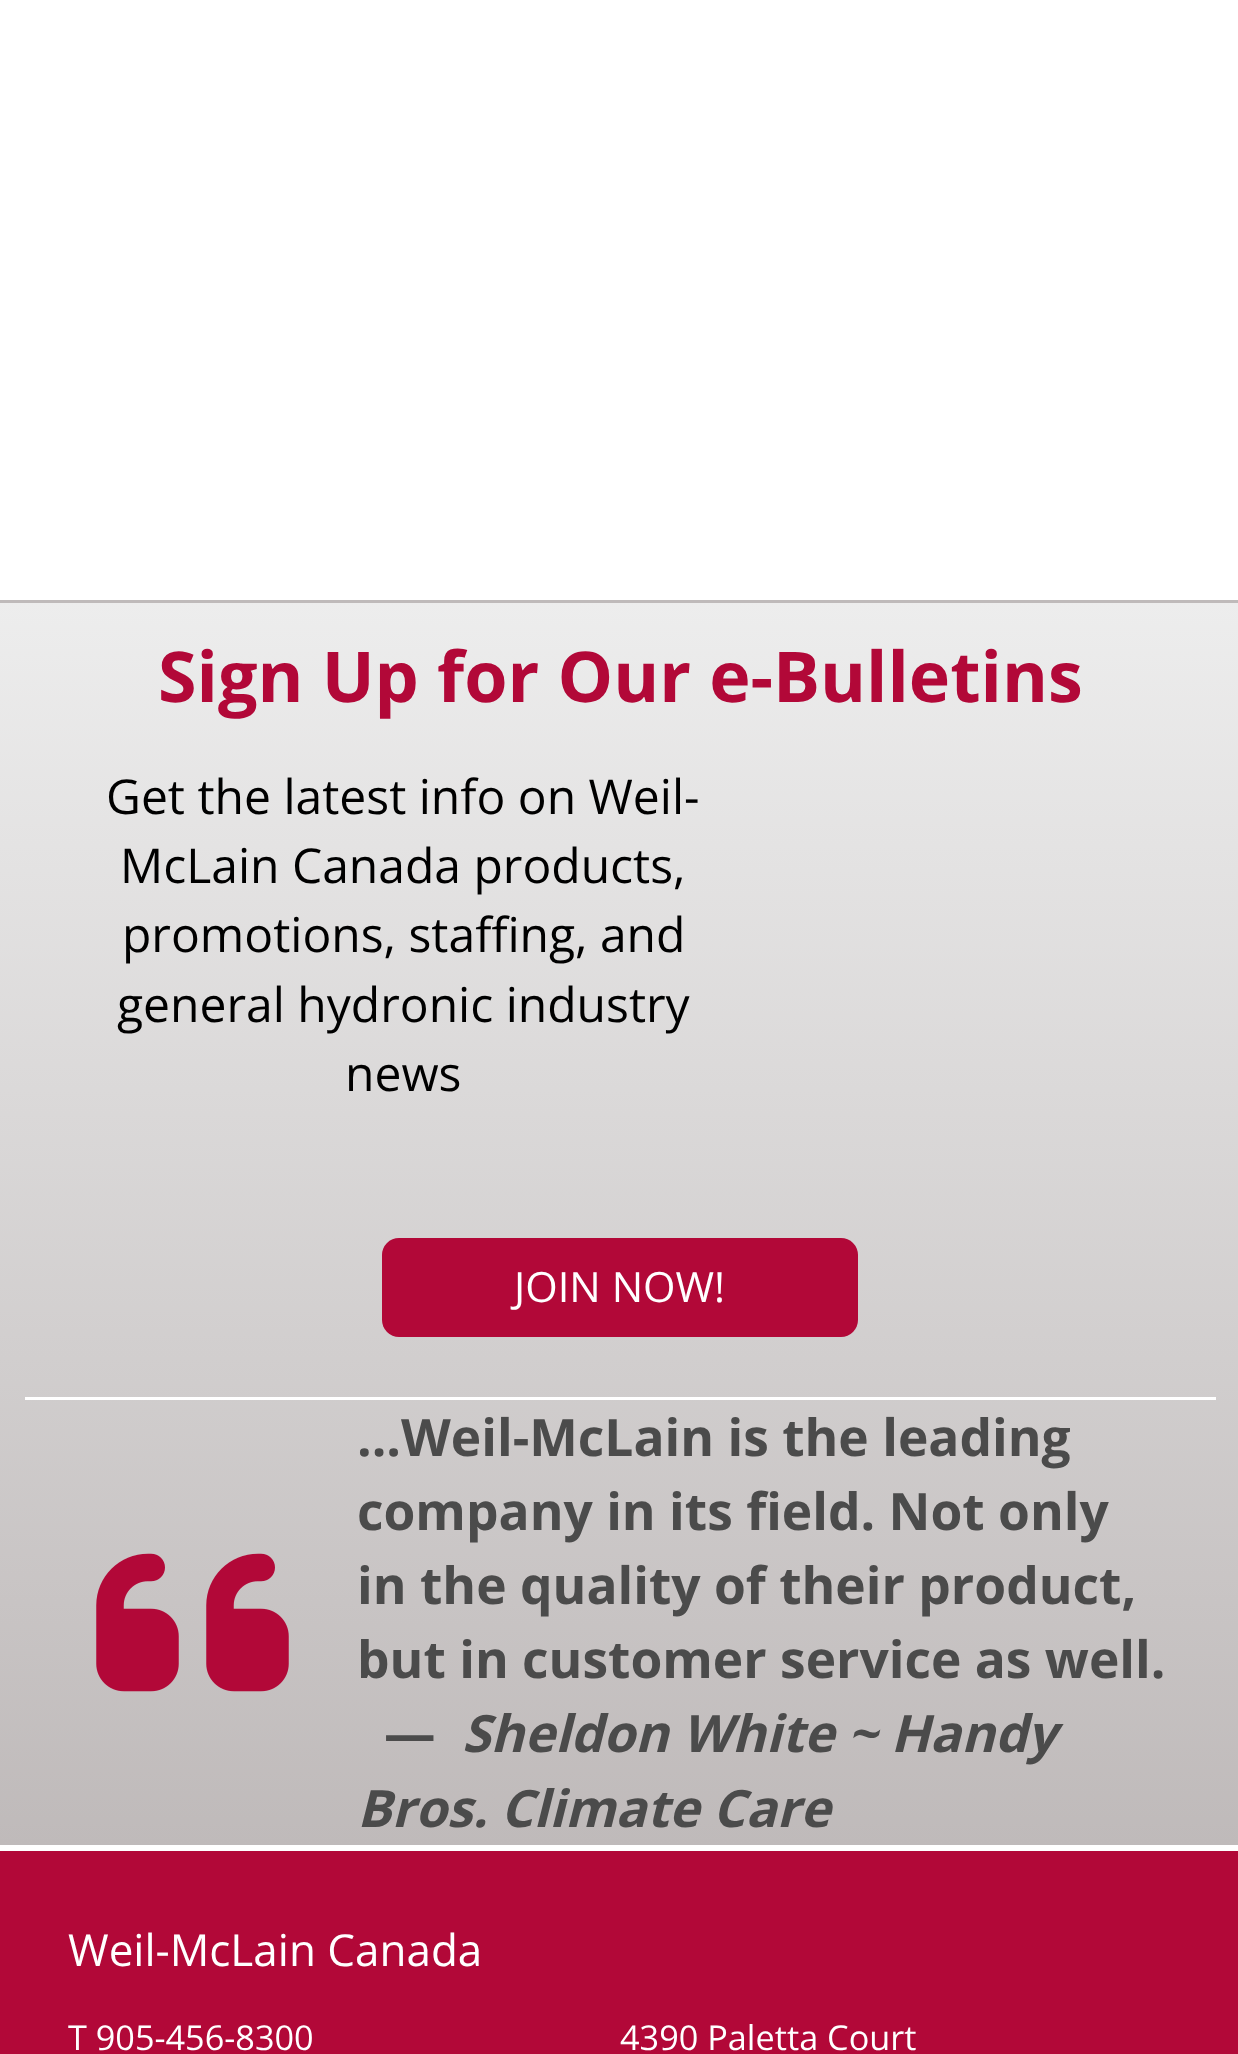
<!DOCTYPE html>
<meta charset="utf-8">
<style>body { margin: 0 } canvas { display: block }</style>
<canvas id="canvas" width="1238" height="2054"></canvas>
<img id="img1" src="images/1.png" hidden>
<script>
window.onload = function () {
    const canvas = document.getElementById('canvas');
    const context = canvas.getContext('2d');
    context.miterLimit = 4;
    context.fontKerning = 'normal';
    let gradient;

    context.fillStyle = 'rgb(255, 255, 255)';
    context.fillRect(0, 0, 1238, 2054);
    gradient = context.createLinearGradient(620, 602, 620, 1845);
    gradient.addColorStop(0, 'rgb(237, 237, 237)');
    gradient.addColorStop(1, 'rgb(191, 186, 186)');
    context.fillStyle = gradient;
    context.fillRect(0, 603, 1238, 1242);
    context.fillStyle = 'rgb(191, 186, 186)';
    context.fillRect(0, 600, 1238, 3);
    context.fillStyle = 'rgb(255, 255, 255)';
    context.fillRect(25, 1397, 1191, 3);
    context.fillStyle = 'rgb(178, 8, 56)';
    context.beginPath();
    context.roundRect(382, 1238, 476, 99, 17);
    context.fill();
    context.drawImage(document.getElementById('img1'), 96, 1553, 193, 139);
    context.fillRect(0, 1851, 1238, 203);
    context.font = 'bold 70px Open Sans';
    context.fillText('Sign Up for Our e-Bulletins', 158, 702);
    context.font = '48px Open Sans';
    context.fillStyle = 'rgb(0, 0, 0)';
    context.fillText('Get the latest info on Weil-', 106, 814);
    context.fillText('McLain Canada products,', 120, 883);
    context.fillText('promotions, staffing, and', 122, 952);
    context.fillText('general hydronic industry', 117, 1022);
    context.fillText('news', 345, 1091);
    context.font = '41.75px Open Sans';
    context.fillStyle = 'rgb(255, 255, 255)';
    context.fillText('JOIN NOW!', 514, 1302);
    context.font = 'bold 51.5px Open Sans';
    context.fillStyle = 'rgb(75, 75, 75)';
    context.fillText('...Weil-McLain is the leading', 357, 1456);
    context.fillText('company in its field. Not only', 357, 1530);
    context.fillText('in the quality of their product,', 357, 1604);
    context.fillText('but in customer service as well.', 357, 1678);
    context.fillText('—', 384, 1752);
    context.font = 'italic bold 51.5px Open Sans';
    context.fillText('Sheldon White ~ Handy', 462, 1752);
    context.fillText('Bros. Climate Care', 357, 1827);
    context.font = '44px Open Sans';
    context.fillStyle = 'rgb(255, 255, 255)';
    context.fillText('Weil-McLain Canada', 68, 1966);
    context.font = '34.25px Open Sans';
    context.fillText('T 905-456-8300', 68, 2050);
    context.fillText('4390 Paletta Court', 620, 2050);
};
</script>
